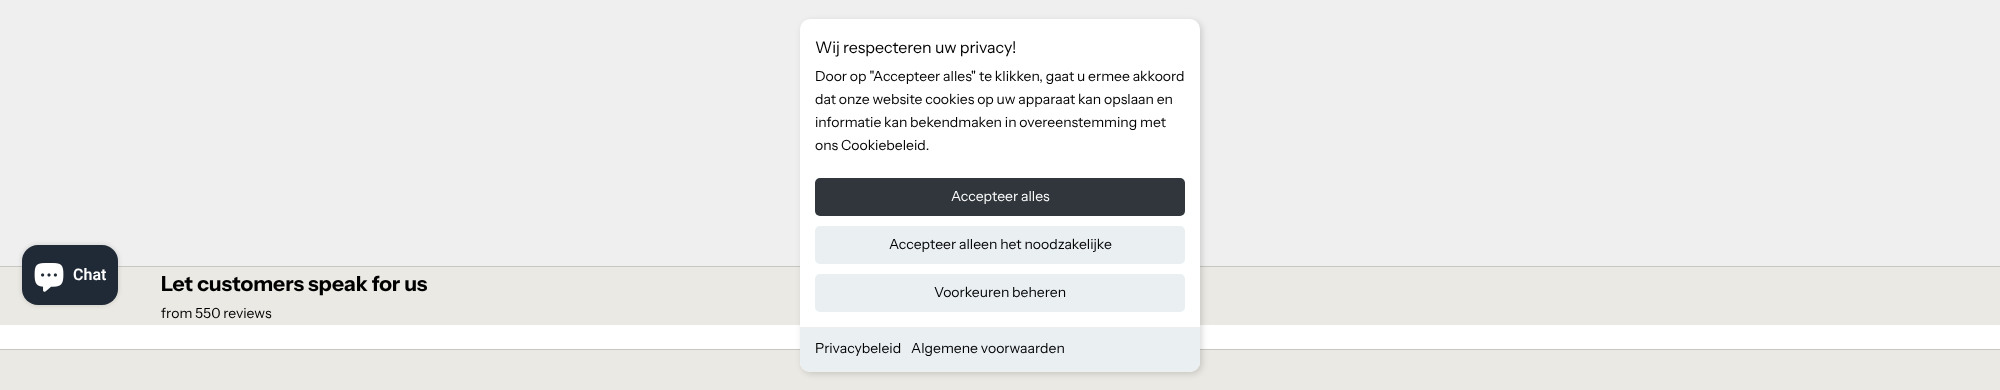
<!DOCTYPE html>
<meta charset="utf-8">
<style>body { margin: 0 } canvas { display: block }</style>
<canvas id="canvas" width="2000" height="390"></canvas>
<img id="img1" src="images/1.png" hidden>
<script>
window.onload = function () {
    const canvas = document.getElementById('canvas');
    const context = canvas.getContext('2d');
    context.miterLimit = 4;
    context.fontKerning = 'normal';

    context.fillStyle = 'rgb(255, 255, 255)';
    context.fillRect(0, 0, 2000, 390);
    context.fillStyle = 'rgb(239, 239, 239)';
    context.fillRect(0, 0, 2000, 266);
    context.fillStyle = 'rgb(235, 233, 227)';
    context.fillRect(0, 267, 2000, 58);
    context.fillStyle = 'rgb(200, 198, 193)';
    context.fillRect(0, 266, 2000, 1);
    context.fillStyle = 'rgba(0, 0, 0, 0.15)';
    context.filter = 'blur(2.5px)';
    context.beginPath();
    context.roundRect(22, 245, 96, 60, 16);
    context.fill();
    context.filter = 'none';
    context.fillStyle = 'rgb(32, 42, 54)';
    context.beginPath();
    context.roundRect(22, 245, 96, 60, 16);
    context.fill();
    context.drawImage(document.getElementById('img1'), 34, 263, 30, 29);
    context.fillStyle = 'rgb(235, 233, 227)';
    context.fillRect(0, 350, 2000, 40);
    context.fillStyle = 'rgb(200, 198, 193)';
    context.fillRect(0, 349, 2000, 1);
    context.fillStyle = 'rgba(0, 0, 0, 0.15)';
    context.filter = 'blur(3px)';
    context.beginPath();
    context.roundRect(802, 21, 400, 353, 10);
    context.fill();
    context.filter = 'none';
    context.fillStyle = 'rgb(255, 255, 255)';
    context.beginPath();
    context.roundRect(800, 19, 400, 353, 10);
    context.fill();
    context.fillStyle = 'rgb(48, 54, 60)';
    context.beginPath();
    context.roundRect(815, 178, 370, 38, 5);
    context.fill();
    context.fillStyle = 'rgb(234, 239, 242)';
    context.beginPath();
    context.roundRect(815, 226, 370, 38, 5);
    context.fill();
    context.beginPath();
    context.roundRect(815, 274, 370, 38, 5);
    context.fill();
    context.save();
    context.beginPath();
    context.roundRect(800, 19, 400, 353, 10);
    context.clip();
    context.fillRect(800, 328, 400, 43);
    context.restore();
    context.fillStyle = 'rgb(238, 238, 238)';
    context.fillRect(800, 327, 400, 1);
    context.save();
    context.beginPath();
    context.roundRect(800, 19, 400, 353, 10);
    context.clip();
    context.fillRect(800, 371, 400, 1);
    context.restore();
    context.font = '600 16px Roboto';
    context.fillStyle = 'rgb(255, 255, 255)';
    context.fillText('Chat', 73, 280);
    context.font = 'bold 21px Instrument Sans';
    context.fillStyle = 'rgb(0, 0, 0)';
    context.fillText('Let customers speak for us', 161, 291);
    context.font = '14px Instrument Sans';
    context.fillText('from 550 reviews', 161, 318);
    context.font = '16px Instrument Sans';
    context.fillText('Wij respecteren uw privacy!', 815, 53);
    context.font = '14px Instrument Sans';
    context.fillText('Door op "Accepteer alles" te klikken, gaat u ermee akkoord', 815, 81);
    context.fillText('dat onze website cookies op uw apparaat kan opslaan en', 815, 104);
    context.fillText('informatie kan bekendmaken in overeenstemming met', 815, 127);
    context.fillText('ons Cookiebeleid.', 815, 150);
    context.fillStyle = 'rgb(255, 255, 255)';
    context.fillText('Accepteer alles', 951, 201);
    context.fillStyle = 'rgb(0, 0, 0)';
    context.fillText('Accepteer alleen het noodzakelijke', 889, 249);
    context.fillText('Voorkeuren beheren', 934, 297);
    context.fillText('Privacybeleid', 815, 353);
    context.fillText('Algemene voorwaarden', 911, 353);
};
</script>
